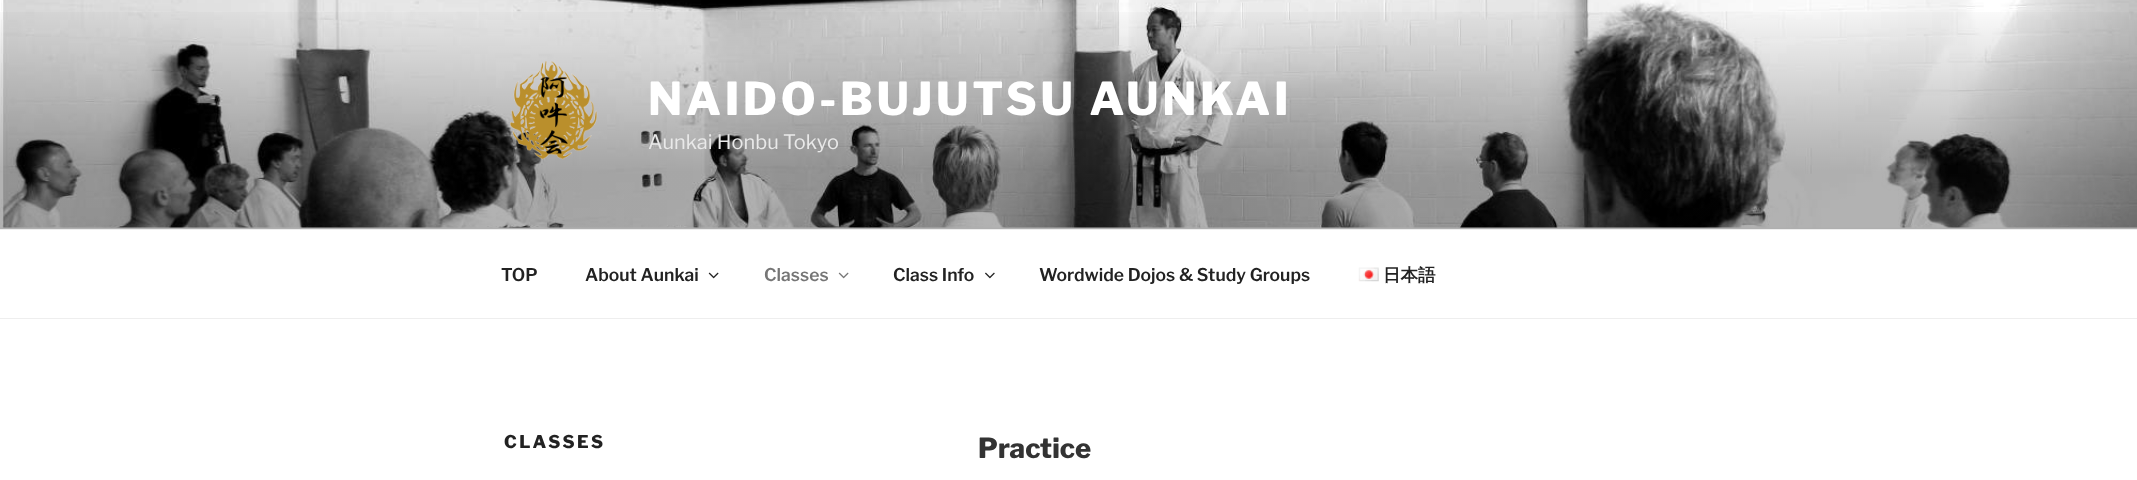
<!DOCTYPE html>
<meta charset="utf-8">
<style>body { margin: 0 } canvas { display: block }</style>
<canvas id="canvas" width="2137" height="480"></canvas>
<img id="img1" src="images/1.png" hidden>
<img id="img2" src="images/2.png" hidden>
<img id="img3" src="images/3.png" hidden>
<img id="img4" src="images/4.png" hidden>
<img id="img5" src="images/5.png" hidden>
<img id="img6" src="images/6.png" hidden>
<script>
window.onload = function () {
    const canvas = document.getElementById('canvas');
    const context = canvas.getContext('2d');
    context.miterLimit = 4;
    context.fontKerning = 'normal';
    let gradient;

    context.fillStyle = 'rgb(255, 255, 255)';
    context.fillRect(0, 0, 2137, 480);
    context.fillStyle = 'rgb(250, 250, 250)';
    context.fillRect(0, 227, 2137, 2);
    context.drawImage(document.getElementById('img1'), 0, 0, 2137, 228);
    gradient = context.createLinearGradient(1069, 0, 1069, 229);
    gradient.addColorStop(0, 'rgba(0, 0, 0, 0)');
    gradient.addColorStop(0.75, 'rgba(0, 0, 0, 0.3)');
    gradient.addColorStop(1, 'rgba(0, 0, 0, 0.3)');
    context.fillStyle = gradient;
    context.fillRect(0, 12, 2137, 217);
    context.drawImage(document.getElementById('img2'), 510, 61, 88, 99);
    context.fillStyle = 'rgb(238, 238, 238)';
    context.fillRect(0, 229, 2137, 1);
    context.fillRect(0, 318, 2137, 1);
    context.drawImage(document.getElementById('img3'), 708, 272, 11, 7);
    context.drawImage(document.getElementById('img4'), 838, 272, 11, 7);
    context.drawImage(document.getElementById('img5'), 985, 272, 10, 7);
    context.drawImage(document.getElementById('img6'), 1358, 267, 21, 15);
    context.letterSpacing = '3.6px';
    context.font = '100 45px Libre Franklin';
    context.fillStyle = 'rgb(255, 255, 255)';
    context.fillText('NAIDO-BUJUTSU AUNKAI', 648, 115);
    context.letterSpacing = '0px';
    context.font = '100 20px "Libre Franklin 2"';
    context.fillStyle = 'rgb(233, 233, 233)';
    context.fillText('Aunkai Honbu Tokyo', 648, 149);
    context.font = '100 17.5px "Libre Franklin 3"';
    context.fillStyle = 'rgb(34, 34, 34)';
    context.fillText('TOP', 501, 281);
    context.fillText('About Aunkai', 585, 281);
    context.fillStyle = 'rgb(118, 118, 118)';
    context.fillText('Classes', 764, 281);
    context.fillStyle = 'rgb(34, 34, 34)';
    context.fillText('Class Info', 893, 281);
    context.fillText('Wordwide Dojos & Study Groups', 1039, 281);
    context.font = 'bold 17.5px WenQuanYi Zen Hei';
    context.fillText('日本語', 1383, 281);
    context.letterSpacing = '2.5px';
    context.font = '100 17.5px Libre Franklin';
    context.fillText('CLASSES', 504, 448);
    context.letterSpacing = '0px';
    context.font = '100 27.5px Libre Franklin';
    context.fillStyle = 'rgb(51, 51, 51)';
    context.fillText('Practice', 978, 458);
};
</script>
